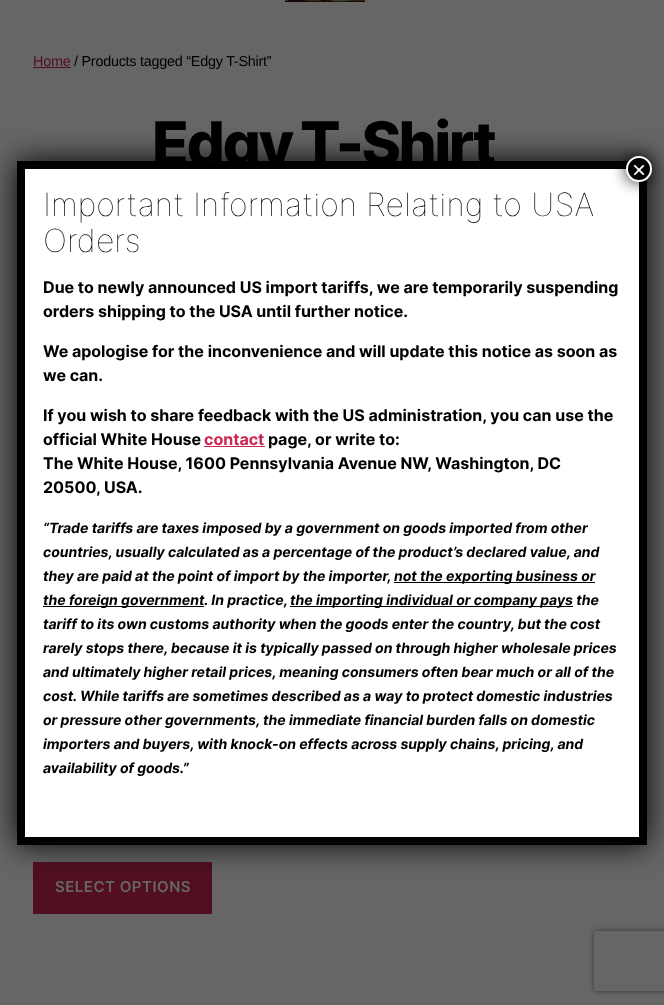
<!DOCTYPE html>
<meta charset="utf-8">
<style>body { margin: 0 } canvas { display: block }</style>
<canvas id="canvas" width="664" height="1005"></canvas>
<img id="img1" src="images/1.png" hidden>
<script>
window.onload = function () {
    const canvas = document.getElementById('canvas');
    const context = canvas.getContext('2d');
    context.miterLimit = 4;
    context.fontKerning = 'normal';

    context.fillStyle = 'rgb(102, 102, 102)';
    context.fillRect(0, 0, 664, 1005);
    context.drawImage(document.getElementById('img1'), 285, 0, 80, 2);
    context.fillStyle = 'rgb(82, 15, 33)';
    context.fillRect(33, 67, 38, 1);
    context.fillRect(33, 862, 179, 52);
    context.fillStyle = 'rgb(2, 2, 2)';
    context.filter = 'blur(15px)';
    context.beginPath();
    context.roundRect(17, 161, 630, 684, 3);
    context.fill();
    context.filter = 'none';
    context.save();
    context.beginPath();
    context.moveTo(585, 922);
    context.lineTo(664, 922);
    context.lineTo(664, 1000);
    context.lineTo(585, 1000);
    context.closePath();
    context.moveTo(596, 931);
    context.lineTo(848, 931);
    context.bezierCurveTo(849, 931, 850, 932, 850, 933);
    context.lineTo(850, 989);
    context.bezierCurveTo(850, 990, 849, 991, 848, 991);
    context.lineTo(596, 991);
    context.bezierCurveTo(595, 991, 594, 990, 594, 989);
    context.lineTo(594, 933);
    context.bezierCurveTo(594, 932, 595, 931, 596, 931);
    context.closePath();
    context.clip('evenodd');
    context.fillStyle = 'rgb(51, 51, 51)';
    context.filter = 'blur(2.5px)';
    context.beginPath();
    context.roundRect(594, 931, 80, 60, 2);
    context.fill();
    context.filter = 'none';
    context.restore();
    context.letterSpacing = '-0.25px';
    context.font = '14.4px Liberation Sans';
    context.fillStyle = 'rgb(82, 15, 33)';
    context.fillText('Home', 33, 66);
    context.fillStyle = 'rgb(0, 0, 0)';
    context.fillText('/ Products tagged “Edgy T-Shirt”', 74, 66);
    context.letterSpacing = '-2.5px';
    context.wordSpacing = '-2px';
    context.font = '800 60px Inter';
    context.fillText('Edgy T-Shirt', 152, 165);
    context.letterSpacing = '0.5px';
    context.wordSpacing = '0px';
    context.font = '600 15px Inter';
    context.fillStyle = 'rgb(102, 102, 102)';
    context.fillText('SELECT OPTIONS', 55, 892);
    context.fillStyle = 'rgb(255, 255, 255)';
    context.fillRect(25, 169, 614, 668);
    context.beginPath();
    context.moveTo(21, 165);
    context.lineTo(643, 165);
    context.lineTo(643, 841);
    context.lineTo(21, 841);
    context.closePath();
    context.strokeStyle = 'rgb(0, 0, 0)';
    context.lineWidth = 8;
    context.stroke();
    context.fillStyle = 'rgba(2, 2, 2, 0.75)';
    context.filter = 'blur(7.5px)';
    context.beginPath();
    context.roundRect(625, 155, 28, 28, 14);
    context.fill();
    context.filter = 'none';
    context.fillStyle = 'rgb(0, 0, 0)';
    context.beginPath();
    context.arc(639, 169, 12, 0, 2 * Math.PI);
    context.fill();
    context.strokeStyle = 'rgb(255, 255, 255)';
    context.lineWidth = 2;
    context.stroke();
    context.letterSpacing = '0px';
    context.font = '24px Liberation Sans';
    context.fillStyle = 'rgb(255, 255, 255)';
    context.fillText('×', 632, 178);
    context.font = '100 32px Inter';
    context.fillStyle = 'rgb(0, 0, 0)';
    context.fillText('Important Information Relating to USA', 43, 216);
    context.fillText('Orders', 43, 252);
    context.font = 'bold 16px Inter';
    context.fillText('Due to newly announced US import tariffs, we are temporarily suspending', 43, 293);
    context.fillText('orders shipping to the USA until further notice.', 43, 317);
    context.fillText('We apologise for the inconvenience and will update this notice as soon as', 43, 357);
    context.fillText('we can.', 43, 381);
    context.fillText('If you wish to share feedback with the US administration, you can use the', 43, 421);
    context.fillText('official White House', 43, 445);
    context.fillStyle = 'rgb(205, 38, 83)';
    context.fillText('contact', 204, 445);
    context.fillRect(204, 446, 61, 1);
    context.fillStyle = 'rgb(0, 0, 0)';
    context.fillText('page, or write to:', 268, 445);
    context.fillText('The White House, 1600 Pennsylvania Avenue NW, Washington, DC', 43, 469);
    context.fillText('20500, USA.', 43, 493);
    context.font = 'italic bold 14px Inter';
    context.fillText('“Trade tariffs are taxes imposed by a government on goods imported from other', 43, 533);
    context.fillText('countries, usually calculated as a percentage of the product’s declared value, and', 43, 557);
    context.fillText('they are paid at the point of import by the importer,', 43, 581);
    context.fillRect(394, 582, 201, 1);
    context.fillText('not the exporting business or', 394, 581);
    context.fillRect(43, 606, 161, 1);
    context.fillText('the foreign government. In practice,', 43, 605);
    context.fillRect(290, 606, 283, 1);
    context.fillText('the importing individual or company pays the', 290, 605);
    context.fillText('tariff to its own customs authority when the goods enter the country, but the cost', 43, 629);
    context.fillText('rarely stops there, because it is typically passed on through higher wholesale prices', 43, 653);
    context.fillText('and ultimately higher retail prices, meaning consumers often bear much or all of the', 43, 677);
    context.fillText('cost. While tariffs are sometimes described as a way to protect domestic industries', 43, 701);
    context.fillText('or pressure other governments, the immediate financial burden falls on domestic', 43, 725);
    context.fillText('importers and buyers, with knock-on effects across supply chains, pricing, and', 43, 749);
    context.fillText('availability of goods.”', 43, 773);
};
</script>
